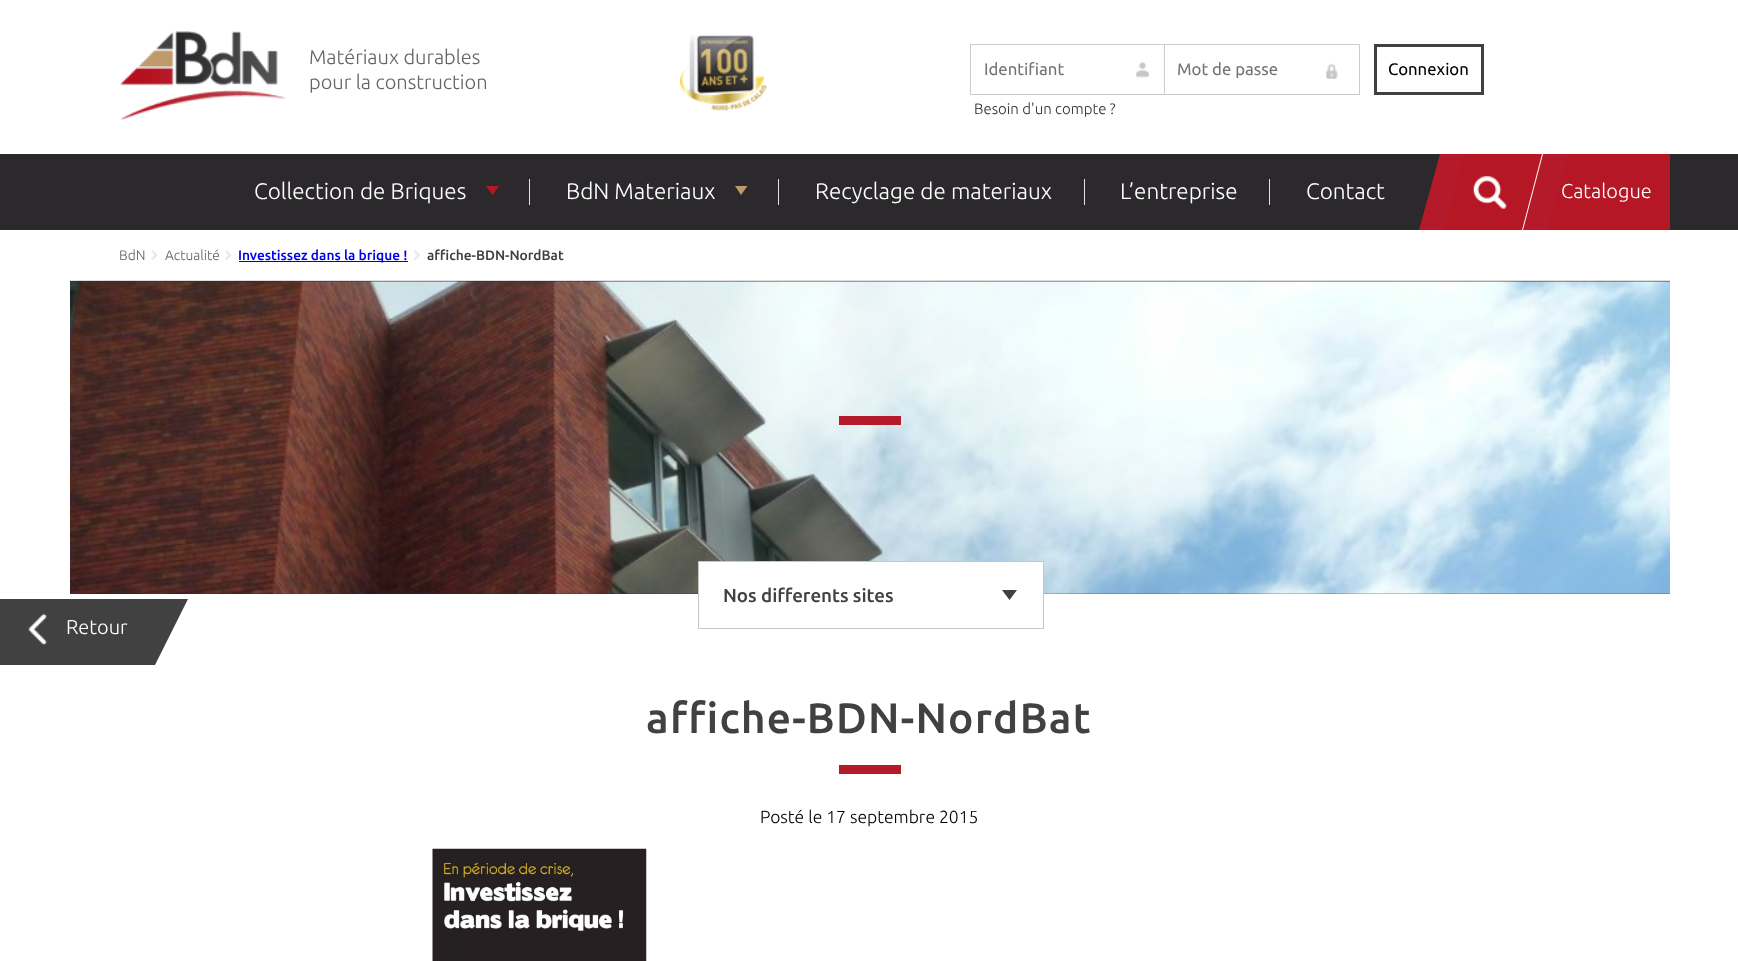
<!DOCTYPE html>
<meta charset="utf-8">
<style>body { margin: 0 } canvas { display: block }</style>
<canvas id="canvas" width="1738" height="961"></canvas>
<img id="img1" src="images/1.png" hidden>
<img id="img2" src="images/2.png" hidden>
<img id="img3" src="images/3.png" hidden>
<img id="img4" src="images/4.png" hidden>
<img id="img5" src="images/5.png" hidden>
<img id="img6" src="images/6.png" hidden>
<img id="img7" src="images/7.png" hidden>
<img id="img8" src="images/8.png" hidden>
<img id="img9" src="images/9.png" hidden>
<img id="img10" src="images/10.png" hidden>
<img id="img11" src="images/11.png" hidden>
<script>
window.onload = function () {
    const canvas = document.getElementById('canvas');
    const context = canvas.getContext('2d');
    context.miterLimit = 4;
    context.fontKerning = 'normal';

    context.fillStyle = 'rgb(255, 255, 255)';
    context.fillRect(0, 0, 1738, 961);
    context.drawImage(document.getElementById('img1'), 120, 31, 166, 89);
    context.drawImage(document.getElementById('img2'), 680, 35, 88, 76);
    context.strokeStyle = 'rgb(204, 204, 204)';
    context.strokeRect(970.5, 44.5, 195, 50);
    context.drawImage(document.getElementById('img3'), 1136, 62, 13, 16);
    context.fillRect(1165, 45, 1, 49);
    context.strokeRect(1164.5, 44.5, 195, 50);
    context.drawImage(document.getElementById('img4'), 1326, 63, 12, 16);
    context.strokeStyle = 'rgb(66, 65, 66)';
    context.lineWidth = 3;
    context.strokeRect(1375.5, 45.5, 107, 48);
    context.fillStyle = 'rgb(43, 41, 44)';
    context.fillRect(0, 154, 1738, 76);
    context.fillStyle = 'rgb(227, 226, 226)';
    context.fillRect(529, 179, 1, 26);
    context.fillStyle = 'rgb(182, 23, 36)';
    context.beginPath();
    context.moveTo(486, 186);
    context.lineTo(499, 186);
    context.lineTo(492.5, 195);
    context.closePath();
    context.fill();
    context.fillStyle = 'rgb(227, 226, 226)';
    context.fillRect(778, 179, 1, 26);
    context.fillStyle = 'rgb(190, 153, 107)';
    context.beginPath();
    context.moveTo(735, 186);
    context.lineTo(747.5, 186);
    context.lineTo(741, 195);
    context.closePath();
    context.fill();
    context.fillStyle = 'rgb(227, 226, 226)';
    context.fillRect(1084, 179, 1, 26);
    context.fillRect(1269, 179, 1, 26);
    context.fillStyle = 'rgb(182, 23, 36)';
    context.fillRect(1444, 154, 98, 76);
    context.fillStyle = 'rgb(180, 26, 41)';
    context.beginPath();
    context.moveTo(1440, 154);
    context.lineTo(1465, 154);
    context.lineTo(1444, 230);
    context.lineTo(1419, 230);
    context.closePath();
    context.fill();
    context.drawImage(document.getElementById('img5'), 1473, 176, 34, 33);
    context.fillStyle = 'rgb(182, 23, 36)';
    context.fillRect(1548, 154, 122, 76);
    context.fillStyle = 'rgb(222, 221, 221)';
    context.fillRect(70, 280, 1600, 1);
    context.drawImage(document.getElementById('img6'), 151, 250, 7, 10);
    context.drawImage(document.getElementById('img7'), 225, 250, 7, 10);
    context.fillStyle = 'rgb(0, 0, 238)';
    context.fillRect(239, 261, 169, 1);
    context.drawImage(document.getElementById('img8'), 413, 250, 7, 10);
    context.fillStyle = 'rgb(45, 45, 50)';
    context.fillRect(70, 281, 1600, 313);
    context.drawImage(document.getElementById('img9'), 70, 281, 1600, 313);
    context.fillStyle = 'rgb(180, 26, 41)';
    context.fillRect(839, 416, 62, 9);
    context.fillStyle = 'rgb(255, 255, 255)';
    context.fillRect(699, 562, 344, 32);
    context.strokeStyle = 'rgb(199, 198, 198)';
    context.lineWidth = 1;
    context.strokeRect(698.5, 561.5, 345, 67);
    context.fillStyle = 'rgb(66, 65, 66)';
    context.beginPath();
    context.moveTo(1002, 590);
    context.lineTo(1017, 590);
    context.lineTo(1009.5, 600);
    context.closePath();
    context.fill();
    context.fillRect(0, 599, 151, 66);
    context.drawImage(document.getElementById('img10'), 28, 613, 19, 33);
    context.fillStyle = 'rgb(180, 26, 41)';
    context.fillRect(839, 765, 62, 9);
    context.drawImage(document.getElementById('img11'), 432, 848, 215, 113);
    context.font = '300 20px Ubuntu';
    context.fillStyle = 'rgb(101, 101, 101)';
    context.fillText('Matériaux durables', 309, 64);
    context.fillText('pour la construction', 309, 89);
    context.font = '16.75px Ubuntu';
    context.fillStyle = 'rgb(117, 117, 117)';
    context.fillText('Identifiant', 984, 75);
    context.fillText('Mot de passe', 1177, 75);
    context.fillStyle = 'rgb(0, 0, 0)';
    context.fillText('Connexion', 1388, 75);
    context.font = '300 15px Ubuntu';
    context.fillStyle = 'rgb(51, 51, 51)';
    context.fillText('Besoin d\'un compte ?', 974, 114);
    context.font = '300 22.5px Ubuntu';
    context.fillStyle = 'rgb(255, 255, 255)';
    context.fillText('Collection de Briques', 254, 199);
    context.fillText('BdN Materiaux', 566, 199);
    context.fillText('Recyclage de materiaux', 815, 199);
    context.fillText('L’entreprise', 1120, 199);
    context.fillText('Contact', 1306, 199);
    context.font = '300 20px Ubuntu';
    context.fillText('Catalogue', 1561, 198);
    context.fillStyle = 'rgb(180, 26, 41)';
    context.beginPath();
    context.moveTo(1542, 154);
    context.lineTo(1568, 154);
    context.lineTo(1548, 230);
    context.lineTo(1522, 230);
    context.closePath();
    context.fill();
    context.fillStyle = 'rgb(255, 255, 255)';
    context.beginPath();
    context.moveTo(1542, 154);
    context.lineTo(1543, 154);
    context.lineTo(1523, 230);
    context.lineTo(1522, 230);
    context.closePath();
    context.fill();
    context.font = '300 13.75px Ubuntu';
    context.fillStyle = 'rgb(101, 101, 101)';
    context.fillText('BdN', 119, 260);
    context.fillText('Actualité', 165, 260);
    context.font = '500 13.75px Ubuntu';
    context.fillStyle = 'rgb(0, 0, 238)';
    context.fillText('Investissez dans la brique !', 238, 260);
    context.fillStyle = 'rgb(66, 65, 66)';
    context.fillText('affiche-BDN-NordBat', 427, 260);
    context.font = '500 18.75px Ubuntu';
    context.fillText('Nos differents sites', 723, 602);
    context.font = '300 20px Ubuntu';
    context.fillStyle = 'rgb(255, 255, 255)';
    context.fillText('Retour', 66, 634);
    context.fillStyle = 'rgb(66, 65, 66)';
    context.beginPath();
    context.moveTo(151, 599);
    context.lineTo(188, 599);
    context.lineTo(155, 665);
    context.lineTo(117, 665);
    context.closePath();
    context.fill();
    context.letterSpacing = '1.25px';
    context.font = '500 42.5px Ubuntu';
    context.fillText('affiche-BDN-NordBat', 646, 733);
    context.letterSpacing = '0px';
    context.font = '300 17.5px Ubuntu';
    context.fillStyle = 'rgb(0, 0, 0)';
    context.fillText('Posté le 17 septembre 2015', 760, 823);
};
</script>
